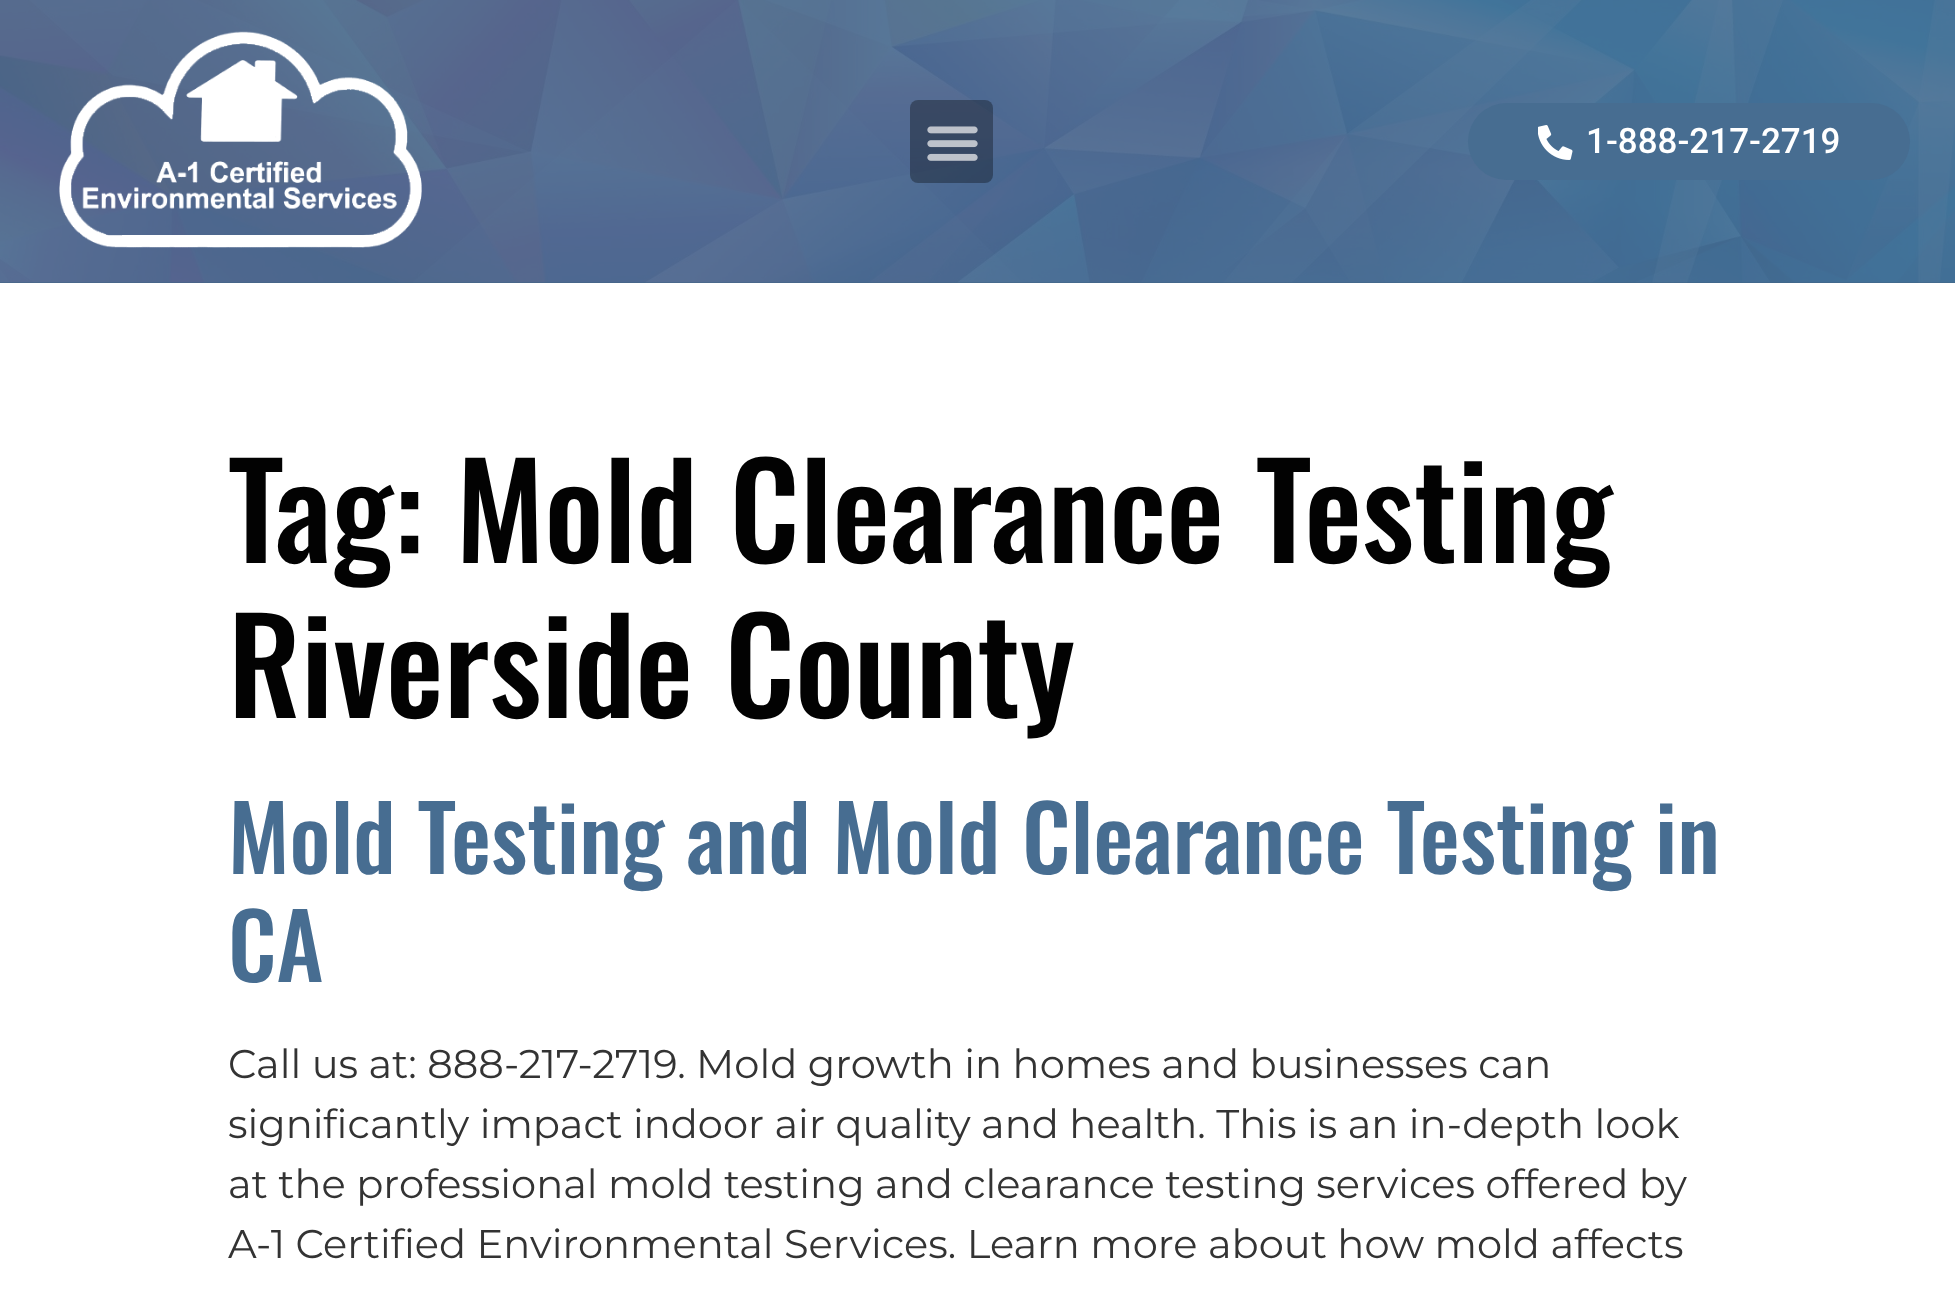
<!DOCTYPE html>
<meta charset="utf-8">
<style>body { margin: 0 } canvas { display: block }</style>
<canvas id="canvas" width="1955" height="1307"></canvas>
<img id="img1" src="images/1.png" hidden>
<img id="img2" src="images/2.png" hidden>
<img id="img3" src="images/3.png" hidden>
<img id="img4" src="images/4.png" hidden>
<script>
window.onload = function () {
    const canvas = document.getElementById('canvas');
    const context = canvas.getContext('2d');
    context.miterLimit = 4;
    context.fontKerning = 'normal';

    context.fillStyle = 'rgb(255, 255, 255)';
    context.fillRect(0, 0, 1955, 1307);
    context.fillStyle = 'rgb(65, 100, 132)';
    context.fillRect(0, 282, 1955, 1);
    context.drawImage(document.getElementById('img1'), 0, 0, 1955, 283);
    context.drawImage(document.getElementById('img2'), 59, 31, 363, 217);
    context.fillStyle = 'rgba(0, 0, 0, 0.32)';
    context.beginPath();
    context.roundRect(910, 100, 83, 83, 8);
    context.fill();
    context.drawImage(document.getElementById('img3'), 927, 126, 51, 35);
    context.fillStyle = 'rgb(71, 109, 145)';
    context.beginPath();
    context.roundRect(1468, 103, 442, 77, 38.5);
    context.fill();
    context.drawImage(document.getElementById('img4'), 1538, 125, 35, 35);
    context.font = '500 35px Roboto';
    context.fillStyle = 'rgb(255, 255, 255)';
    context.fillText('1-888-217-2719', 1586, 153);
    context.font = '500 130px Oswald';
    context.fillStyle = 'rgb(2, 2, 2)';
    context.fillText('Tag: Mold Clearance Testing', 228, 563);
    context.fillText('Riverside County', 228, 718);
    context.font = '500 90px Oswald';
    context.fillStyle = 'rgb(71, 109, 145)';
    context.fillText('Mold Testing and Mold Clearance Testing in', 228, 874);
    context.fillText('CA', 228, 982);
    context.font = '40px Montserrat';
    context.fillStyle = 'rgb(51, 51, 51)';
    context.fillText('Call us at: 888-217-2719. Mold growth in homes and businesses can', 228, 1078);
    context.fillText('significantly impact indoor air quality and health. This is an in-depth look', 228, 1138);
    context.fillText('at the professional mold testing and clearance testing services offered by', 228, 1198);
    context.fillText('A-1 Certified Environmental Services. Learn more about how mold affects', 228, 1258);
};
</script>
